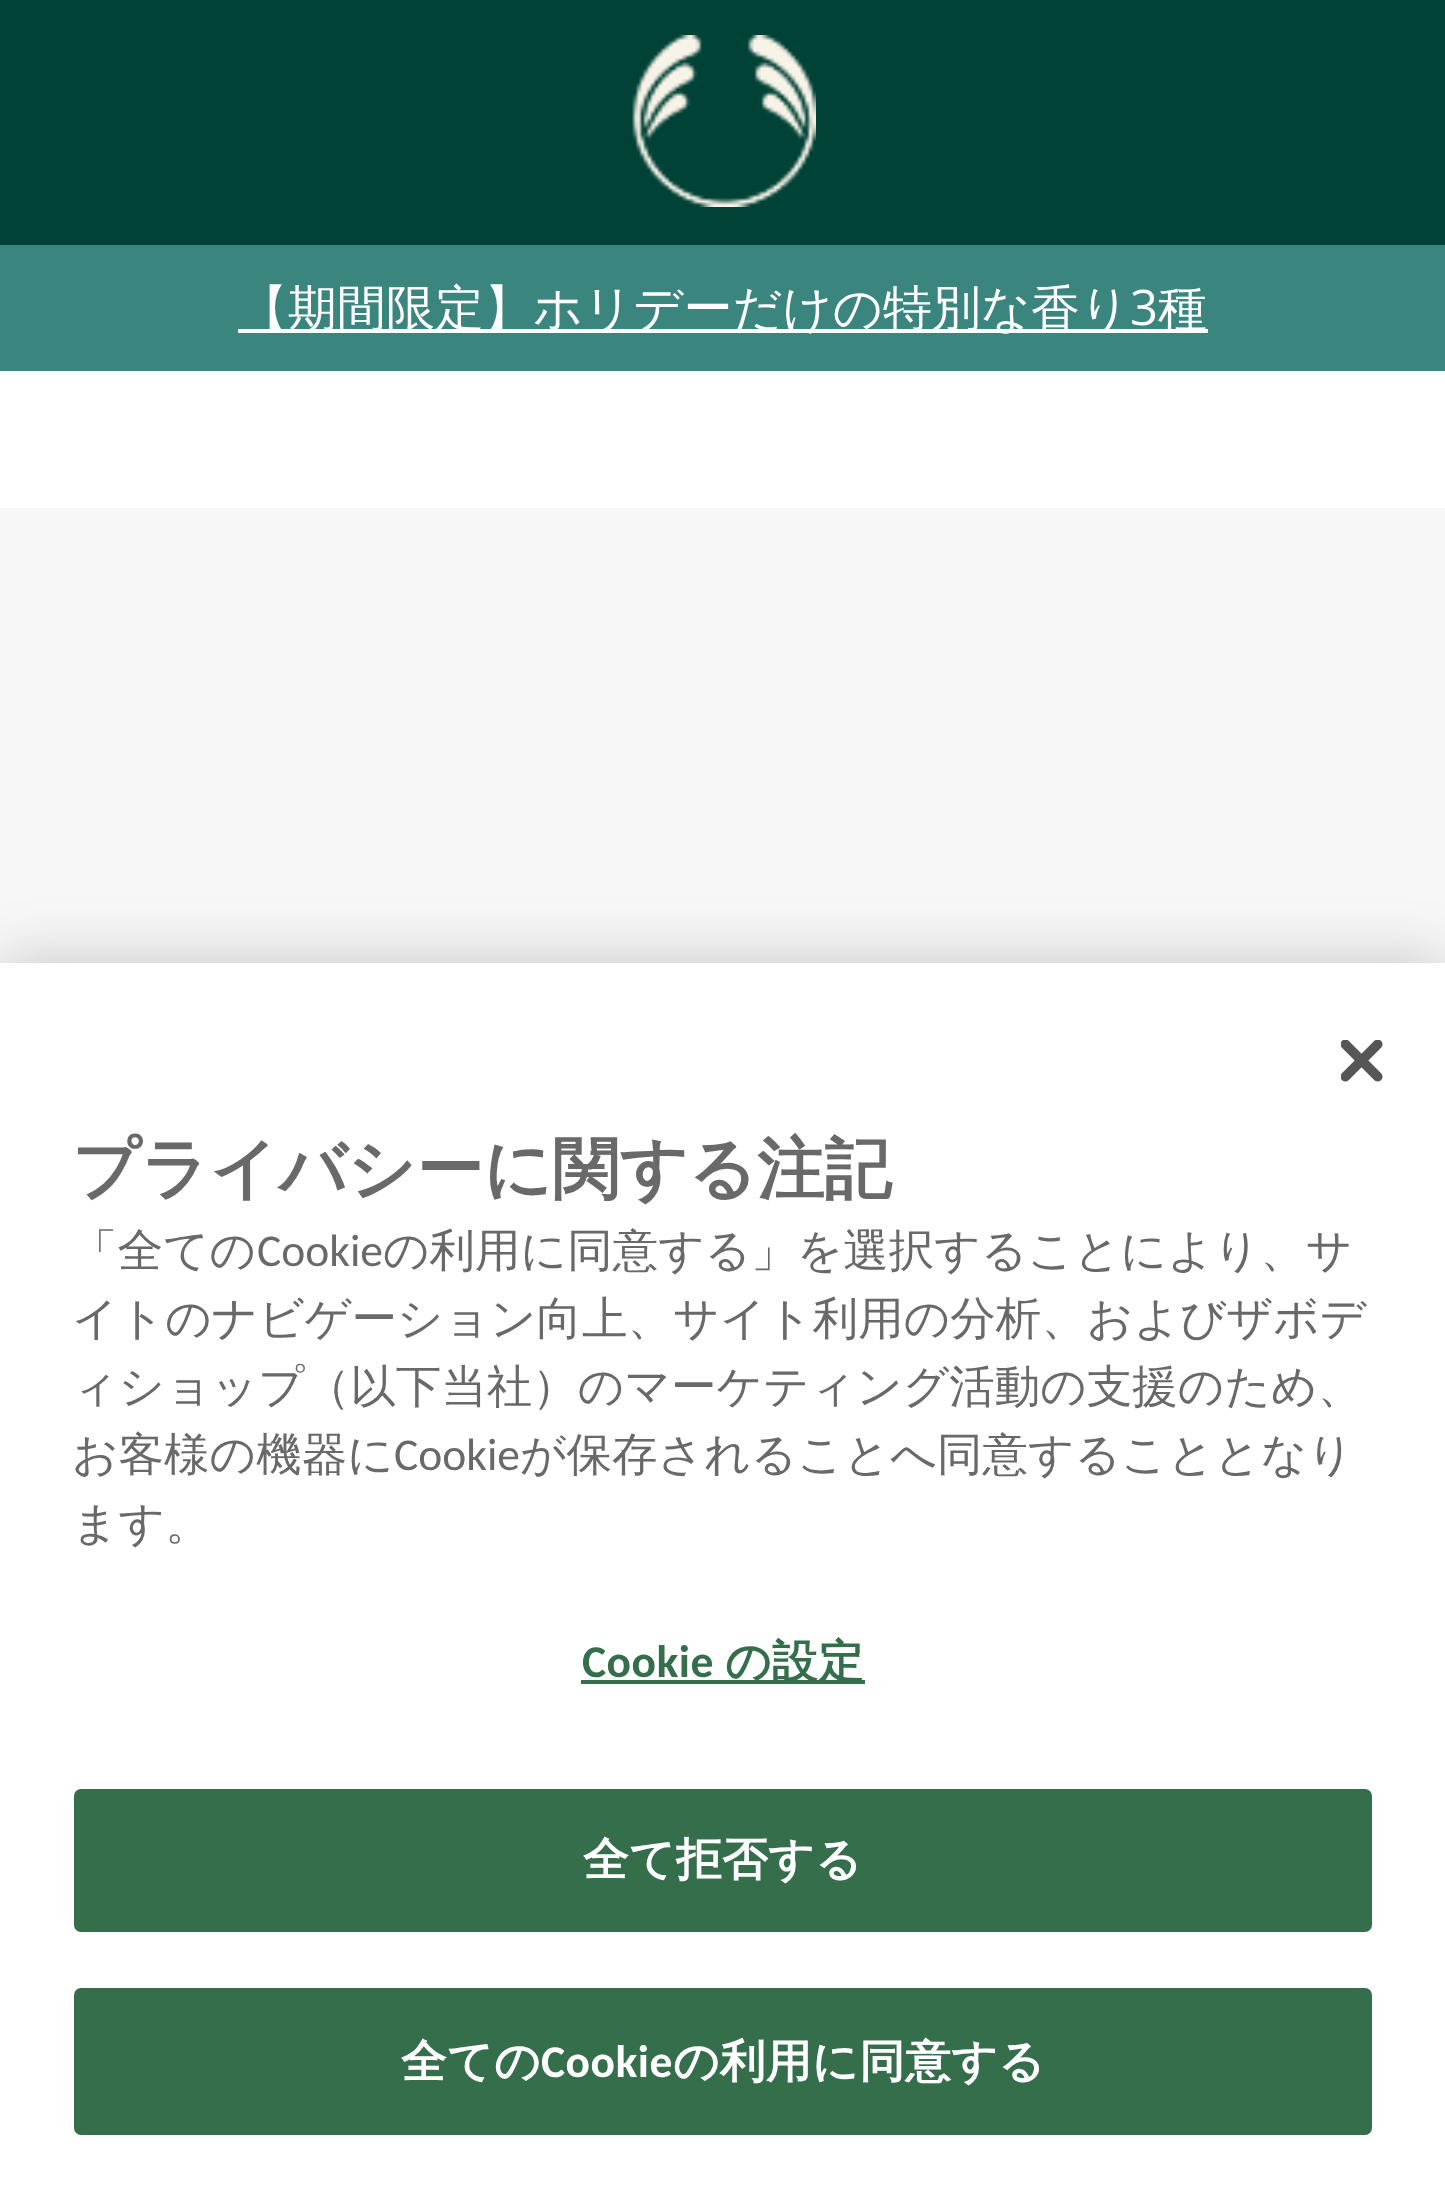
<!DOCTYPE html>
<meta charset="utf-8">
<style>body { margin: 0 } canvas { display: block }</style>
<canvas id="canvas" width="1445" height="2190"></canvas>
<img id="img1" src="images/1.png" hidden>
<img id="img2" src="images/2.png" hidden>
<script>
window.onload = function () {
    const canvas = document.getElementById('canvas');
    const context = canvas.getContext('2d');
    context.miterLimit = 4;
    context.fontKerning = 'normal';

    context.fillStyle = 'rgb(255, 255, 255)';
    context.fillRect(0, 0, 1445, 2190);
    context.fillStyle = 'rgb(0, 66, 54)';
    context.fillRect(0, 0, 1445, 245);
    context.drawImage(document.getElementById('img1'), 632, 35, 184, 172);
    context.fillStyle = 'rgb(58, 133, 126)';
    context.fillRect(0, 245, 1445, 126);
    context.fillStyle = 'rgb(255, 255, 255)';
    context.fillRect(238, 329, 970, 4);
    context.fillStyle = 'rgb(247, 247, 247)';
    context.fillRect(0, 508, 1445, 455);
    context.fillStyle = 'rgba(0, 0, 0, 0.2)';
    context.filter = 'blur(31.5px)';
    context.beginPath();
    context.rect(0, 963, 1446, 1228);
    context.fill();
    context.filter = 'none';
    context.fillStyle = 'rgb(255, 255, 255)';
    context.fillRect(0, 963, 1445, 1227);
    context.drawImage(document.getElementById('img2'), 1341, 1040, 42, 42);
    context.fillStyle = 'rgb(52, 110, 74)';
    context.fillRect(581, 1680, 284, 4);
    context.beginPath();
    context.roundRect(76, 1791, 1294, 139, 5);
    context.fill();
    context.strokeStyle = 'rgb(52, 110, 74)';
    context.lineWidth = 4;
    context.stroke();
    context.beginPath();
    context.roundRect(76, 1990, 1294, 143, 5);
    context.fill();
    context.stroke();
    context.font = '500 49px WenQuanYi Zen Hei';
    context.fillStyle = 'rgb(255, 255, 255)';
    context.fillText('【期間限定】ホリデーだけの特別な香り', 239, 325);
    context.font = '49px Open Sans';
    context.fillText('3', 1130, 325);
    context.font = '500 49px WenQuanYi Zen Hei';
    context.fillText('種', 1158, 325);
    context.font = 'bold 67.25px WenQuanYi Zen Hei';
    context.fillStyle = 'rgb(105, 105, 105)';
    context.fillText('プライバシーに関する注記', 72, 1192);
    context.font = '500 45.5px WenQuanYi Zen Hei';
    context.fillText('「全ての', 72, 1266);
    context.font = '45.5px Carlito';
    context.fillText('Cookie', 257, 1266);
    context.font = '500 45.5px WenQuanYi Zen Hei';
    context.fillText('の利用に同意する」を選択することにより、サ', 383, 1266);
    context.fillText('イトのナビゲーション向上、サイト利用の分析、およびザボデ', 72, 1334);
    context.fillText('ィショップ（以下当社）のマーケティング活動の支援のため、', 72, 1402);
    context.fillText('お客様の機器に', 72, 1470);
    context.font = '45.5px Carlito';
    context.fillText('Cookie', 394, 1470);
    context.font = '500 45.5px WenQuanYi Zen Hei';
    context.fillText('が保存されることへ同意することとなり', 520, 1470);
    context.fillText('ます。', 72, 1539);
    context.letterSpacing = '0.5px';
    context.font = 'bold 45.5px Carlito';
    context.fillStyle = 'rgb(52, 110, 74)';
    context.fillText('Cookie', 582, 1677);
    context.font = 'bold 45.5px WenQuanYi Zen Hei';
    context.fillText('の設定', 725, 1677);
    context.fillStyle = 'rgb(255, 255, 255)';
    context.fillText('全て拒否する', 583, 1875);
    context.fillText('全ての', 401, 2077);
    context.font = 'bold 45.5px Carlito';
    context.fillText('Cookie', 541, 2077);
    context.font = 'bold 45.5px WenQuanYi Zen Hei';
    context.fillText('の利用に同意する', 673, 2077);
};
</script>
